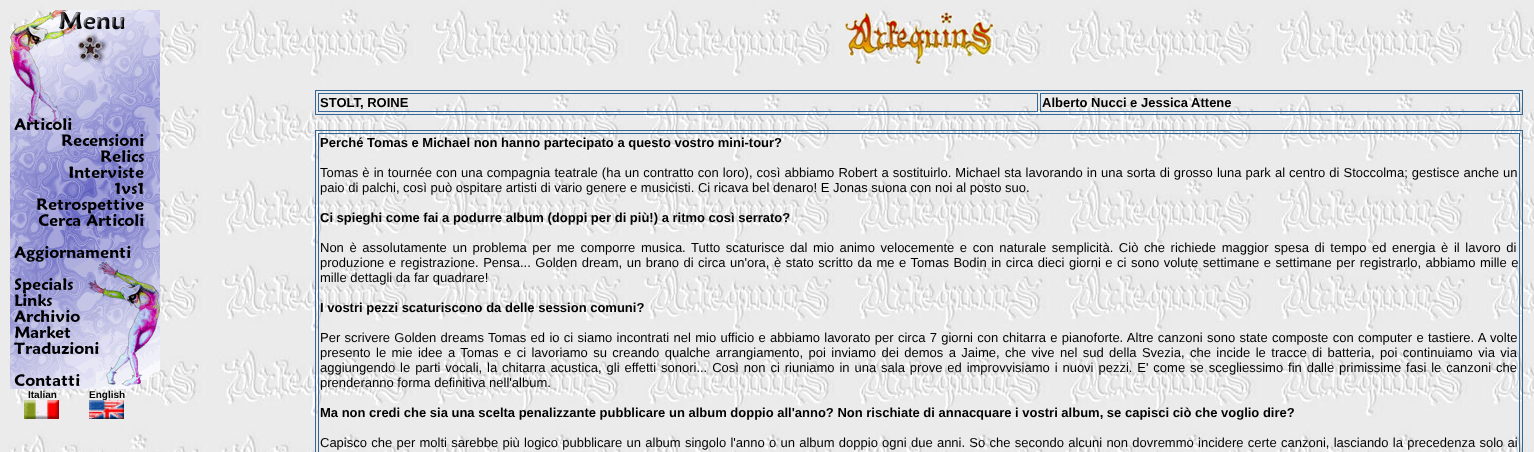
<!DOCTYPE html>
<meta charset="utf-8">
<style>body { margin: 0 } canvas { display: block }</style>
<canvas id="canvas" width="1534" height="452"></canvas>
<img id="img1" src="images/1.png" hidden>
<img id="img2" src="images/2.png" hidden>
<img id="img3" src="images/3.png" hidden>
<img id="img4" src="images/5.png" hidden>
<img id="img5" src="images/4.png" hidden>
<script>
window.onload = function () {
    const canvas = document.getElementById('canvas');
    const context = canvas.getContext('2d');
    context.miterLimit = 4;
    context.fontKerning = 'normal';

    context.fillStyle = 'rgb(255, 255, 255)';
    context.fillRect(0, 0, 1534, 452);
    context.drawImage(document.getElementById('img1'), 0, 0, 1534, 452);
    context.drawImage(document.getElementById('img2'), 10, 10, 150, 379);
    context.drawImage(document.getElementById('img3'), 24, 400, 35, 19);
    context.drawImage(document.getElementById('img4'), 844, 12, 150, 53);
    context.strokeStyle = 'rgb(51, 102, 153)';
    context.strokeRect(315.5, 90.5, 1207, 24);
    context.strokeRect(318.5, 93.5, 719, 18);
    context.strokeRect(1040.5, 93.5, 479, 18);
    context.strokeRect(315.5, 130.5, 1207, 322);
    context.strokeRect(318.5, 133.5, 1201, 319);
    context.font = 'bold 10px Liberation Sans';
    context.fillStyle = 'rgb(0, 0, 0)';
    context.fillText('Italian', 28, 398);
    context.fillText('English', 89, 398);
    context.drawImage(document.getElementById('img5'), 89, 400, 35, 19);
    context.font = 'bold 13px Liberation Sans';
    context.fillText('STOLT, ROINE', 320, 107);
    context.fillText('Alberto Nucci e Jessica Attene', 1042, 107);
    context.fillText('Perché Tomas e Michael non hanno partecipato a questo vostro mini-tour?', 320, 147);
    context.wordSpacing = '0.45px';
    context.font = '13px Liberation Sans';
    context.fillText('Tomas è in tournée con una compagnia teatrale (ha un contratto con loro), così abbiamo Robert a sostituirlo. Michael sta lavorando in una sorta di grosso luna park al centro di Stoccolma; gestisce anche un', 320, 177);
    context.wordSpacing = '0px';
    context.fillText('paio di palchi, così può ospitare artisti di vario genere e musicisti. Ci ricava bel denaro! E Jonas suona con noi al posto suo.', 320, 192);
    context.font = 'bold 13px Liberation Sans';
    context.fillText('Ci spieghi come fai a podurre album (doppi per di più!) a ritmo così serrato?', 320, 222);
    context.wordSpacing = '2px';
    context.font = '13px Liberation Sans';
    context.fillText('Non è assolutamente un problema per me comporre musica. Tutto scaturisce dal mio animo velocemente e con naturale semplicità. Ciò che richiede maggior spesa di tempo ed energia è il lavoro di', 320, 252);
    context.wordSpacing = '0.9px';
    context.fillText('produzione e registrazione. Pensa... Golden dream, un brano di circa un\'ora, è stato scritto da me e Tomas Bodin in circa dieci giorni e ci sono volute settimane e settimane per registrarlo, abbiamo mille e', 320, 267);
    context.wordSpacing = '0px';
    context.fillText('mille dettagli da far quadrare!', 320, 282);
    context.font = 'bold 13px Liberation Sans';
    context.fillText('I vostri pezzi scaturiscono da delle session comuni?', 320, 312);
    context.wordSpacing = '0.7px';
    context.font = '13px Liberation Sans';
    context.fillText('Per scrivere Golden dreams Tomas ed io ci siamo incontrati nel mio ufficio e abbiamo lavorato per circa 7 giorni con chitarra e pianoforte. Altre canzoni sono state composte con computer e tastiere. A volte', 320, 342);
    context.wordSpacing = '1.8px';
    context.fillText('presento le mie idee a Tomas e ci lavoriamo su creando qualche arrangiamento, poi inviamo dei demos a Jaime, che vive nel sud della Svezia, che incide le tracce di batteria, poi continuiamo via via', 320, 357);
    context.wordSpacing = '1.3px';
    context.fillText('aggiungendo le parti vocali, la chitarra acustica, gli effetti sonori... Così non ci riuniamo in una sala prove ed improvvisiamo i nuovi pezzi. E\' come se scegliessimo fin dalle primissime fasi le canzoni che', 320, 372);
    context.wordSpacing = '0px';
    context.fillText('prenderanno forma definitiva nell\'album.', 320, 387);
    context.font = 'bold 13px Liberation Sans';
    context.fillText('Ma non credi che sia una scelta penalizzante pubblicare un album doppio all\'anno? Non rischiate di annacquare i vostri album, se capisci ciò che voglio dire?', 320, 417);
    context.wordSpacing = '0.65px';
    context.font = '13px Liberation Sans';
    context.fillText('Capisco che per molti sarebbe più logico pubblicare un album singolo l\'anno o un album doppio ogni due anni. So che secondo alcuni non dovremmo incidere certe canzoni, lasciando la precedenza solo ai', 320, 447);
};
</script>
